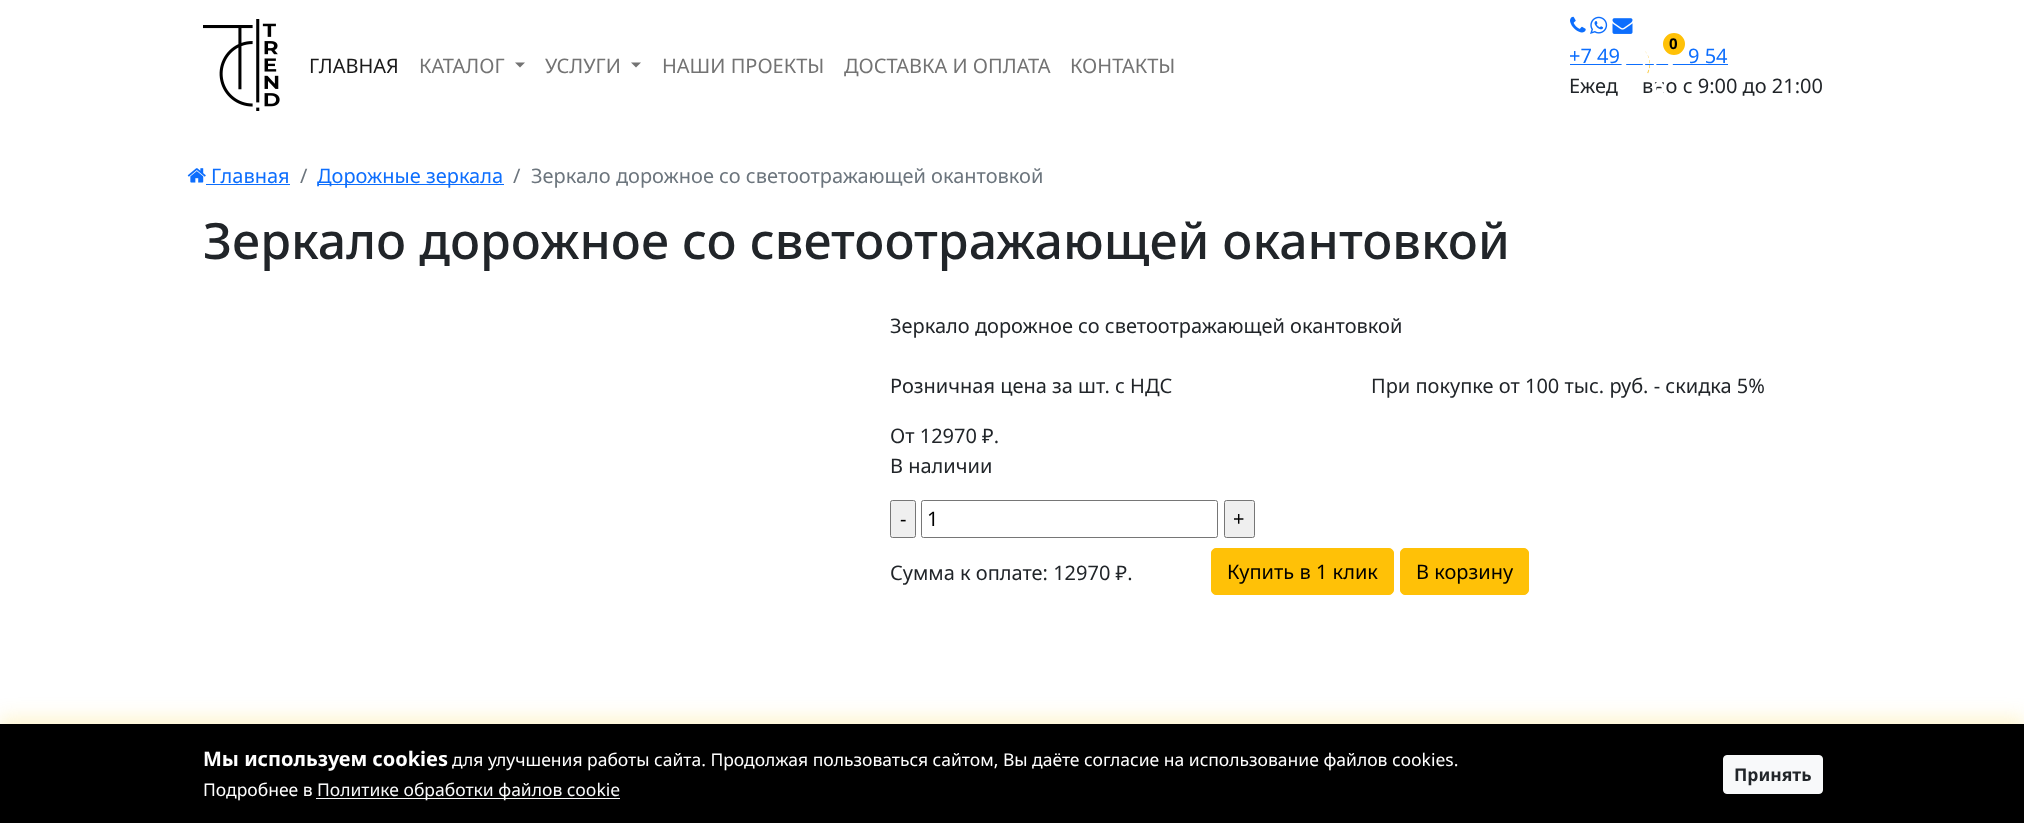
<!DOCTYPE html>
<meta charset="utf-8">
<style>body { margin: 0 } canvas { display: block }</style>
<canvas id="canvas" width="2024" height="823"></canvas>
<img id="img1" src="images/1.png" hidden>
<img id="img2" src="images/3.png" hidden>
<img id="img3" src="images/4.png" hidden>
<img id="img4" src="images/5.png" hidden>
<img id="img5" src="images/6.png" hidden>
<img id="img6" src="images/2.png" hidden>
<script>
window.onload = function () {
    const canvas = document.getElementById('canvas');
    const context = canvas.getContext('2d');
    context.miterLimit = 4;
    context.fontKerning = 'normal';

    context.fillStyle = 'rgb(255, 255, 255)';
    context.fillRect(0, 0, 2024, 823);
    context.drawImage(document.getElementById('img1'), 203, 19, 77, 92);
    context.fillStyle = 'rgb(115, 115, 115)';
    context.beginPath();
    context.moveTo(515, 62.5);
    context.lineTo(525, 62.5);
    context.lineTo(520, 67.5);
    context.closePath();
    context.fill();
    context.beginPath();
    context.moveTo(631, 62.5);
    context.lineTo(641, 62.5);
    context.lineTo(636, 67.5);
    context.closePath();
    context.fill();
    context.drawImage(document.getElementById('img2'), 1570, 16, 16, 17);
    context.drawImage(document.getElementById('img3'), 1590, 16, 18, 18);
    context.drawImage(document.getElementById('img4'), 1612, 18, 21, 16);
    context.fillStyle = 'rgb(13, 110, 253)';
    context.fillRect(1570, 64, 158, 1);
    context.drawImage(document.getElementById('img5'), 187, 168, 19, 15);
    context.fillRect(206, 184, 84, 1);
    context.fillRect(318, 184, 186, 1);
    context.fillStyle = 'rgb(239, 239, 239)';
    context.beginPath();
    context.roundRect(890.5, 500.5, 25, 37, 2);
    context.fill();
    context.strokeStyle = 'rgb(118, 118, 118)';
    context.stroke();
    context.beginPath();
    context.roundRect(921.5, 500.5, 296, 37, 2);
    context.stroke();
    context.beginPath();
    context.roundRect(1224.5, 500.5, 30, 37, 2);
    context.fill();
    context.stroke();
    context.fillStyle = 'rgb(255, 193, 7)';
    context.beginPath();
    context.roundRect(1211.5, 548.5, 182, 46, 4.5);
    context.fill();
    context.strokeStyle = 'rgb(255, 193, 7)';
    context.stroke();
    context.beginPath();
    context.roundRect(1400.5, 548.5, 128, 46, 4.5);
    context.fill();
    context.stroke();
    context.fillStyle = 'rgba(249, 203, 25, 0.22)';
    context.filter = 'blur(9.5px)';
    context.beginPath();
    context.rect(0, 718, 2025, 100);
    context.fill();
    context.filter = 'none';
    context.fillStyle = 'rgb(0, 0, 0)';
    context.fillRect(0, 724, 2024, 99);
    context.fillStyle = 'rgb(248, 249, 250)';
    context.fillRect(316, 798, 304, 1);
    context.beginPath();
    context.roundRect(1723.5, 755.5, 99, 38, 3.5);
    context.fill();
    context.strokeStyle = 'rgb(248, 249, 250)';
    context.stroke();
    context.font = '20px Noto Sans';
    context.fillStyle = 'rgb(26, 26, 26)';
    context.fillText('ГЛАВНАЯ', 309, 73);
    context.fillStyle = 'rgb(115, 115, 115)';
    context.fillText('КАТАЛОГ', 419, 73);
    context.fillText('УСЛУГИ', 545, 73);
    context.fillText('НАШИ ПРОЕКТЫ', 662, 73);
    context.fillText('ДОСТАВКА И ОПЛАТА', 844, 73);
    context.fillText('КОНТАКТЫ', 1070, 73);
    context.fillStyle = 'rgb(13, 110, 253)';
    context.fillText('+7 49', 1569, 63);
    context.fillText('9 54', 1688, 63);
    context.fillStyle = 'rgb(33, 37, 41)';
    context.fillText('Ежед', 1569, 93);
    context.fillText('вно с 9:00 до 21:00', 1642, 93);
    context.drawImage(document.getElementById('img6'), 1621, 48, 52, 46);
    context.fillStyle = 'rgb(255, 193, 7)';
    context.beginPath();
    context.arc(1674, 44, 12.5, 0, 2 * Math.PI);
    context.fill();
    context.strokeStyle = 'rgb(255, 255, 255)';
    context.lineWidth = 3;
    context.stroke();
    context.font = 'bold 15px Noto Sans';
    context.fillStyle = 'rgb(0, 0, 0)';
    context.fillText('0', 1669, 49);
    context.font = '20px Noto Sans';
    context.fillStyle = 'rgb(13, 110, 253)';
    context.fillText('Главная', 211, 183);
    context.fillStyle = 'rgb(108, 117, 125)';
    context.fillText('/', 300, 183);
    context.fillStyle = 'rgb(13, 110, 253)';
    context.fillText('Дорожные зеркала', 317, 183);
    context.fillStyle = 'rgb(108, 117, 125)';
    context.fillText('/', 513, 183);
    context.fillText('Зеркало дорожное со светоотражающей окантовкой', 531, 183);
    context.font = '500 50px Noto Sans';
    context.fillStyle = 'rgb(33, 37, 41)';
    context.fillText('Зеркало дорожное со светоотражающей окантовкой', 203, 259);
    context.font = '20px Noto Sans';
    context.fillText('Зеркало дорожное со светоотражающей окантовкой', 890, 333);
    context.fillText('Розничная цена за шт. с НДС', 890, 393);
    context.fillText('При покупке от 100 тыс. руб. - скидка 5%', 1371, 393);
    context.fillText('От 12970 ₽.', 890, 443);
    context.fillText('В наличии', 890, 473);
    context.fillStyle = 'rgb(0, 0, 0)';
    context.fillText('-', 900, 526);
    context.fillText('1', 927, 526);
    context.fillText('+', 1233, 526);
    context.fillStyle = 'rgb(33, 37, 41)';
    context.fillText('Сумма к оплате: 12970 ₽.', 890, 580);
    context.fillStyle = 'rgb(0, 0, 0)';
    context.fillText('Купить в 1 клик', 1227, 579);
    context.fillText('В корзину', 1416, 579);
    context.font = 'bold 20px Noto Sans';
    context.fillStyle = 'rgb(255, 255, 255)';
    context.fillText('Мы используем cookies', 203, 766);
    context.font = '17.5px Noto Sans';
    context.fillText('для улучшения работы сайта. Продолжая пользоваться сайтом, Вы даёте согласие на использование файлов cookies.', 452, 766);
    context.fillText('Подробнее в', 203, 796);
    context.fillStyle = 'rgb(248, 249, 250)';
    context.fillText('Политике обработки файлов cookie', 317, 796);
    context.font = 'bold 17.5px Noto Sans';
    context.fillStyle = 'rgb(33, 37, 41)';
    context.fillText('Принять', 1734, 781);
};
</script>
